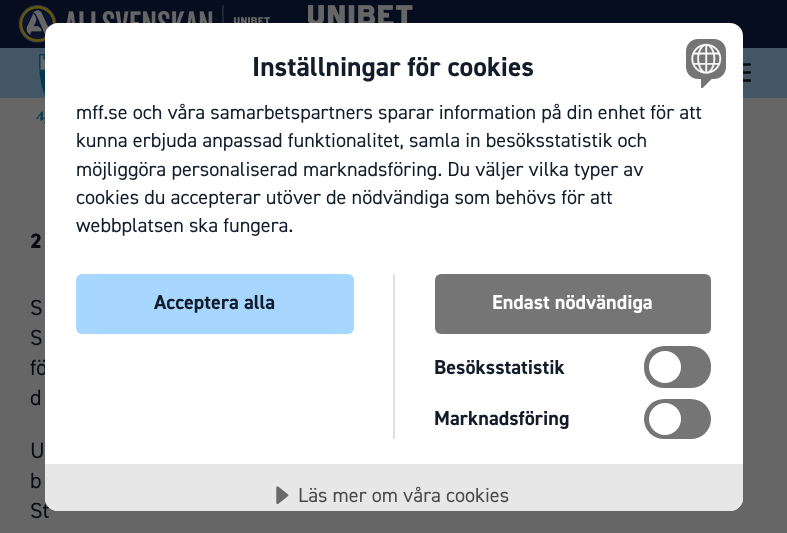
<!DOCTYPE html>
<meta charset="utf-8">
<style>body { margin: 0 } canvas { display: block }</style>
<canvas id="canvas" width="787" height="533"></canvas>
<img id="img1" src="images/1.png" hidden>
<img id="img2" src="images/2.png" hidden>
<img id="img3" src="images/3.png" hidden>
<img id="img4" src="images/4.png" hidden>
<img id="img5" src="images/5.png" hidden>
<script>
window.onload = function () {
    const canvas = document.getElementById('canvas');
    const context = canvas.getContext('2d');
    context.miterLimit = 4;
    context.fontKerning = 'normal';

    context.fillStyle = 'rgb(102, 102, 102)';
    context.fillRect(0, 0, 787, 533);
    context.fillStyle = 'rgb(6, 13, 31)';
    context.fillRect(0, 0, 787, 48);
    context.drawImage(document.getElementById('img1'), 18, 5, 252, 38);
    context.drawImage(document.getElementById('img2'), 308, 5, 105, 18);
    context.fillStyle = 'rgb(67, 86, 102)';
    context.fillRect(0, 48, 787, 50);
    context.drawImage(document.getElementById('img3'), 36, 54, 9, 70);
    context.save();
    context.beginPath();
    context.rect(730, 63, 21, 20);
    context.clip();
    context.beginPath();
    context.moveTo(732, 80.5);
    context.lineTo(750, 80.5);
    context.moveTo(732, 64.5);
    context.lineTo(750, 64.5);
    context.moveTo(732, 72.5);
    context.lineTo(750, 72.5);
    context.strokeStyle = 'rgb(8, 11, 17)';
    context.lineWidth = 2.5;
    context.lineCap = 'round';
    context.lineJoin = 'round';
    context.stroke();
    context.restore();
    context.font = '800 21px "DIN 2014"';
    context.fillStyle = 'rgb(8, 11, 17)';
    context.fillText('2', 30, 248);
    context.font = '22px "DIN 2014"';
    context.fillText('S', 30, 315);
    context.fillText('S', 30, 345);
    context.fillText('fö', 30, 375);
    context.fillText('d', 30, 405);
    context.fillText('U', 30, 458);
    context.fillText('b', 30, 488);
    context.fillText('St', 30, 518);
    context.fillStyle = 'rgb(255, 255, 255)';
    context.beginPath();
    context.roundRect(45, 23, 698, 488, 13);
    context.fill();
    context.font = 'bold 27.5px "DIN 2014"';
    context.fillStyle = 'rgb(19, 28, 42)';
    context.fillText('Inställningar för cookies', 252, 76);
    context.font = '20.25px "DIN 2014"';
    context.fillText('mff.se och våra samarbetspartners sparar information på din enhet för att', 76, 119);
    context.fillText('kunna erbjuda anpassad funktionalitet, samla in besöksstatistik och', 76, 147);
    context.fillText('möjliggöra personaliserad marknadsföring. Du väljer vilka typer av', 76, 176);
    context.fillText('cookies du accepterar utöver de nödvändiga som behövs för att', 76, 204);
    context.fillText('webbplatsen ska fungera.', 76, 232);
    context.fillStyle = 'rgb(224, 224, 224)';
    context.fillRect(393, 274, 2, 165);
    context.fillStyle = 'rgb(167, 215, 255)';
    context.beginPath();
    context.roundRect(76, 274, 278, 60, 6);
    context.fill();
    context.font = 'bold 20.25px "DIN 2014"';
    context.fillStyle = 'rgb(19, 28, 42)';
    context.fillText('Acceptera alla', 154, 309);
    context.fillStyle = 'rgb(117, 117, 117)';
    context.beginPath();
    context.roundRect(435, 274, 276, 60, 6);
    context.fill();
    context.fillStyle = 'rgb(255, 255, 255)';
    context.fillText('Endast nödvändiga', 492, 309);
    context.fillStyle = 'rgb(19, 28, 42)';
    context.fillText('Besöksstatistik', 434, 374);
    context.fillStyle = 'rgb(117, 117, 117)';
    context.beginPath();
    context.roundRect(644, 346, 67, 42, 20);
    context.fill();
    context.fillStyle = 'rgb(255, 255, 255)';
    context.beginPath();
    context.arc(665, 367, 16, 0, 2 * Math.PI);
    context.fill();
    context.fillStyle = 'rgb(19, 28, 42)';
    context.fillText('Marknadsföring', 434, 425);
    context.fillStyle = 'rgb(117, 117, 117)';
    context.beginPath();
    context.roundRect(644, 399, 67, 40, 20);
    context.fill();
    context.fillStyle = 'rgb(255, 255, 255)';
    context.beginPath();
    context.arc(665, 419, 16, 0, 2 * Math.PI);
    context.fill();
    context.drawImage(document.getElementById('img4'), 686, 39, 40, 49);
    context.fillStyle = 'rgb(231, 231, 231)';
    context.beginPath();
    context.roundRect(45, 464, 698, 47, [0, 0, 13, 13]);
    context.fill();
    context.drawImage(document.getElementById('img5'), 276, 486, 13, 19);
    context.font = '20.25px "DIN 2014"';
    context.fillStyle = 'rgb(75, 75, 75)';
    context.fillText('Läs mer om våra cookies', 298, 502);
};
</script>
